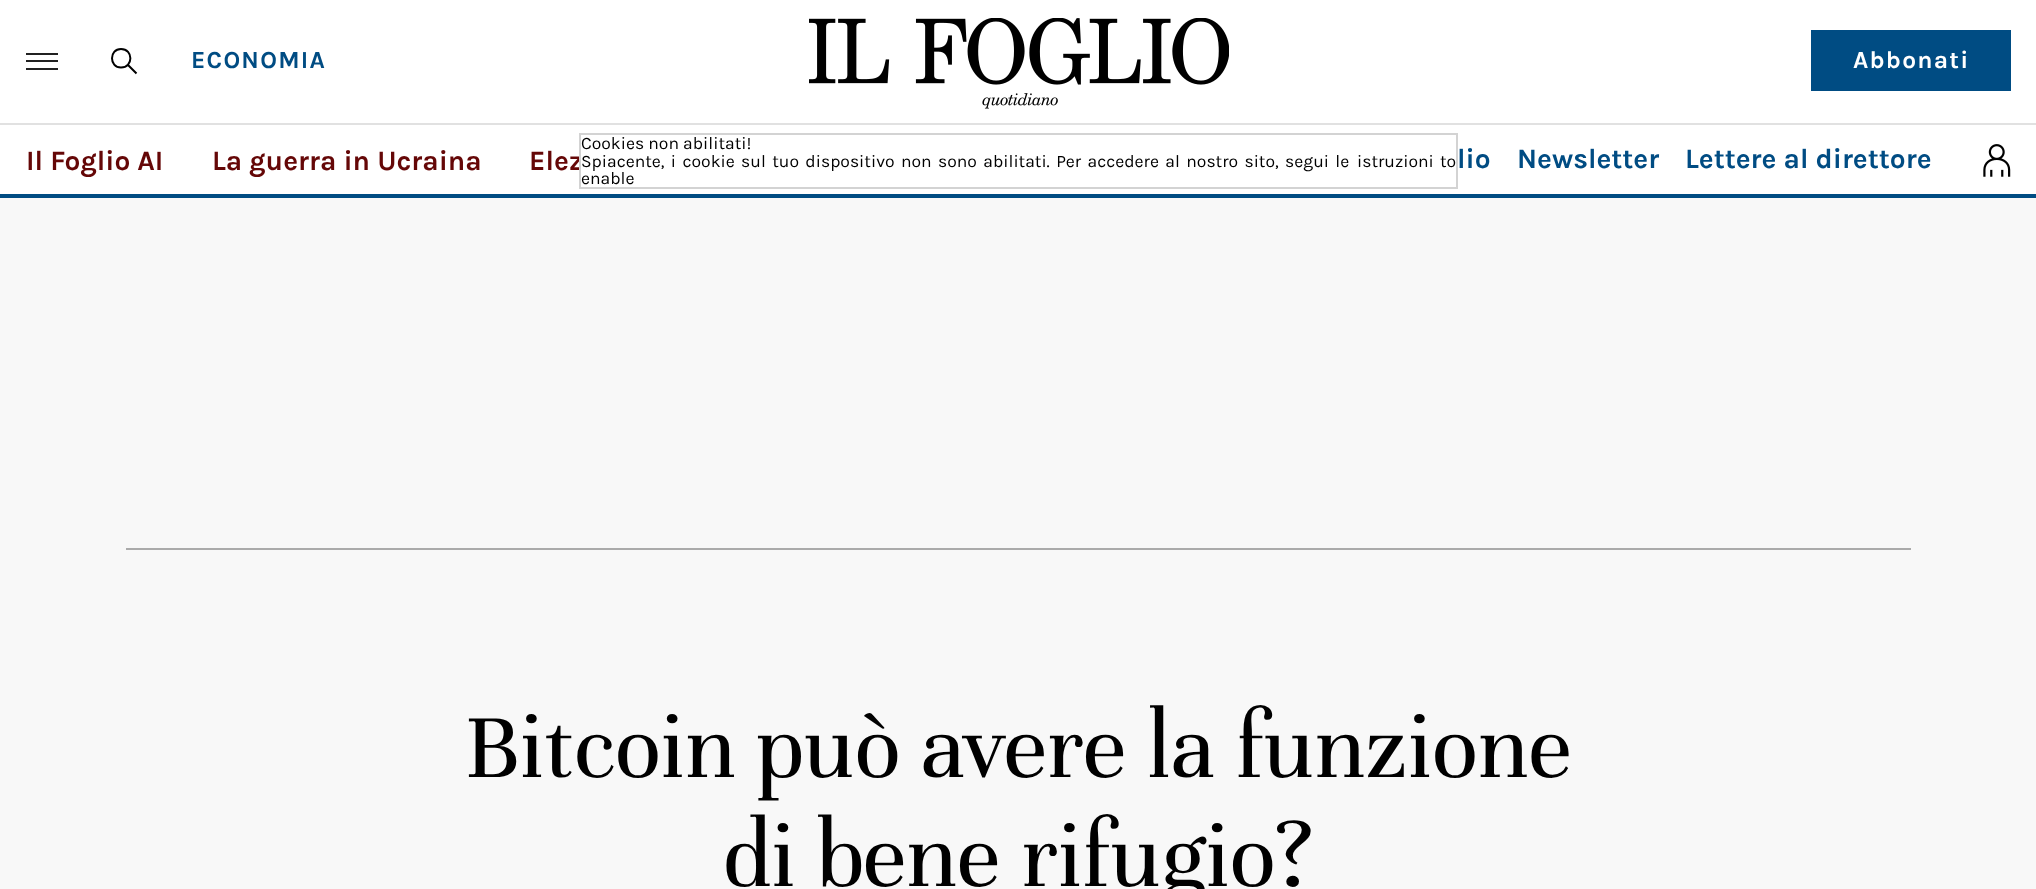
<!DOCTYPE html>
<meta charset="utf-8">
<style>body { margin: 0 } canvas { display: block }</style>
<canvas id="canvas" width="2036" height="889"></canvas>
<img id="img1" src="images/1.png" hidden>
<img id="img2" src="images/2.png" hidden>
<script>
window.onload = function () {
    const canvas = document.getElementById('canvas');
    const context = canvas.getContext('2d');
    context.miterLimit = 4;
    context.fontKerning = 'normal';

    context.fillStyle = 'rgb(248, 248, 248)';
    context.fillRect(0, 0, 2036, 889);
    context.fillStyle = 'rgb(255, 255, 255)';
    context.fillRect(0, 0, 2036, 194);
    context.fillStyle = 'rgb(225, 225, 225)';
    context.fillRect(0, 123, 2036, 2);
    context.fillStyle = 'rgb(33, 33, 33)';
    context.fillRect(26, 68, 32, 2);
    context.fillRect(26, 60, 32, 2);
    context.fillRect(26, 53, 32, 2);
    context.beginPath();
    context.moveTo(128, 65);
    context.lineTo(136.5, 73.5);
    context.closePath();
    context.moveTo(121, 67.5);
    context.bezierCurveTo(133.5, 67.5, 133.5, 49, 121, 49);
    context.bezierCurveTo(109, 49, 109, 67.5, 121, 67.5);
    context.closePath();
    context.strokeStyle = 'rgb(0, 0, 0)';
    context.lineWidth = 2;
    context.stroke();
    context.drawImage(document.getElementById('img1'), 809, 18, 420, 91);
    context.fillStyle = 'rgb(0, 76, 131)';
    context.fillRect(1811, 30, 200, 61);
    context.fillRect(0, 194, 2036, 4);
    context.drawImage(document.getElementById('img2'), 1983, 144, 28, 33);
    context.fillStyle = 'rgb(170, 170, 170)';
    context.fillRect(126, 548, 1785, 2);
    context.letterSpacing = '1.25px';
    context.font = 'bold 24.5px Karla';
    context.fillStyle = 'rgb(0, 76, 131)';
    context.fillText('ECONOMIA', 191, 68);
    context.fillStyle = 'rgb(255, 255, 255)';
    context.fillText('Abbonati', 1853, 68);
    context.letterSpacing = '0px';
    context.font = 'bold 28px Karla';
    context.fillStyle = 'rgb(101, 7, 7)';
    context.fillText('Il Foglio AI', 26, 170);
    context.fillText('La guerra in Ucraina', 212, 170);
    context.fillText('Elez', 529, 170);
    context.fillStyle = 'rgb(0, 76, 131)';
    context.fillText('lio', 1457, 168);
    context.fillText('Newsletter', 1517, 168);
    context.fillText('Lettere al direttore', 1685, 168);
    context.fillStyle = 'rgb(255, 255, 255)';
    context.fillRect(581, 156, 1, 14);
    context.strokeStyle = 'rgb(211, 211, 211)';
    context.strokeRect(580, 134, 877, 54);
    context.font = '17.5px Karla';
    context.fillStyle = 'rgb(0, 0, 0)';
    context.fillText('Cookies non abilitati!', 581, 149);
    context.wordSpacing = '2.25px';
    context.fillText('Spiacente, i cookie sul tuo dispositivo non sono abilitati. Per accedere al nostro sito, segui le', 581, 167);
    context.wordSpacing = '0px';
    context.fillText('istruzioni', 1357, 167);
    context.fillText('to', 1440, 167);
    context.fillText('enable', 581, 184);
    context.letterSpacing = '-0.7px';
    context.font = '98px Unna';
    context.fillText('Bitcoin può avere la funzione', 464, 777);
    context.fillText('di bene rifugio?', 723, 886);
};
</script>
